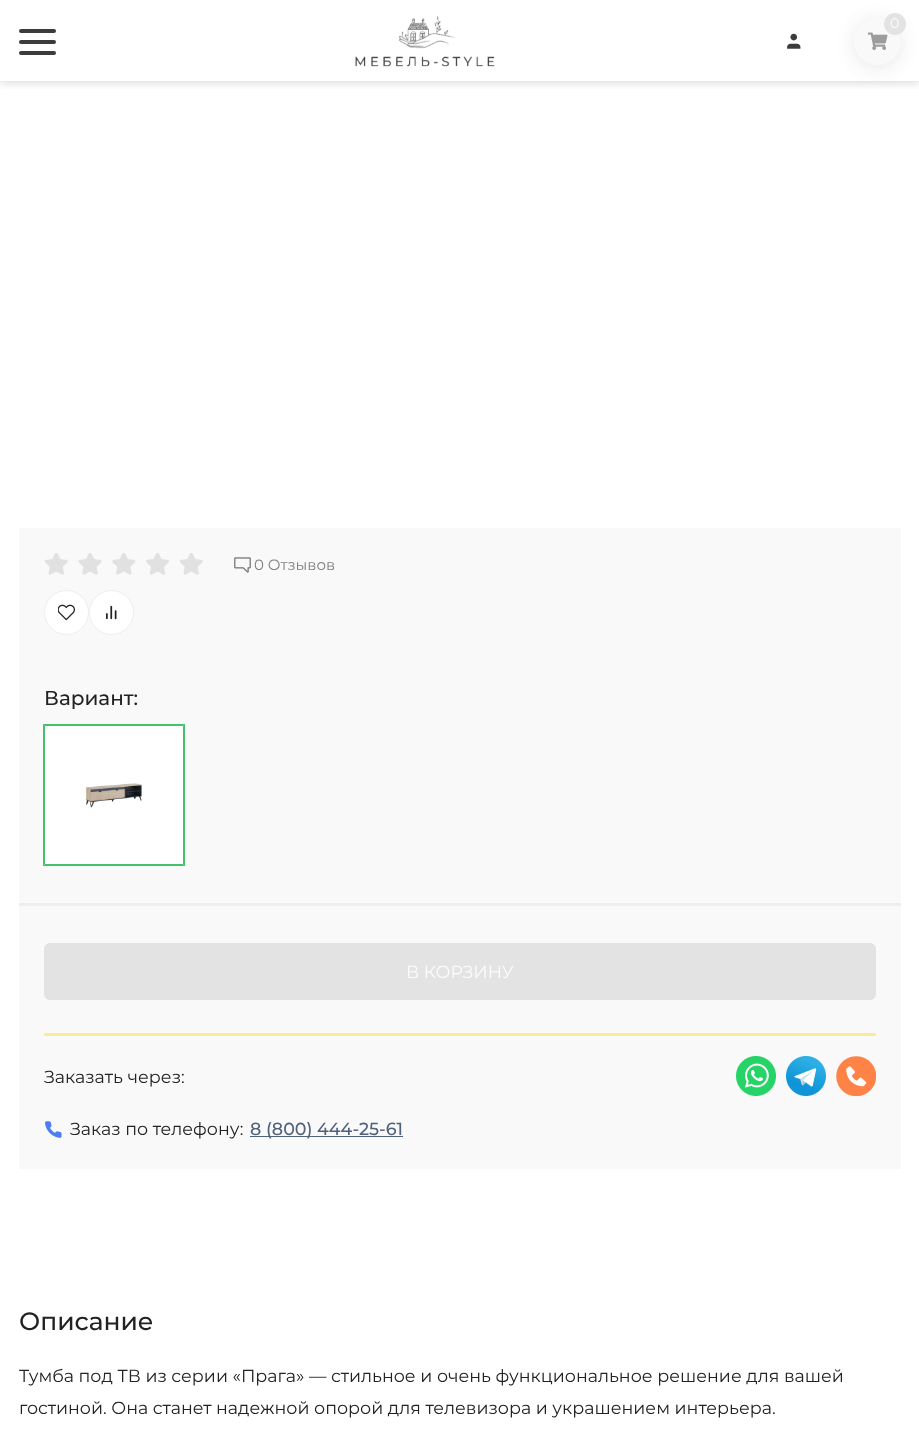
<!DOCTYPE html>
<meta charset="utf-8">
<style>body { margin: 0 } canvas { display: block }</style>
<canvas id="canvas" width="919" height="1436"></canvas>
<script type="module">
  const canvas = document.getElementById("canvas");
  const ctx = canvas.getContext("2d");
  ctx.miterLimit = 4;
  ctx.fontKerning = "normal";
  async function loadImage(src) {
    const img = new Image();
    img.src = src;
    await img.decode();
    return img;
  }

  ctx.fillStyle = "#ffffff";
  ctx.fillRect(0, 0, 919, 1436);
  ctx.save();
  ctx.beginPath();
  ctx.rect(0, 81, 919, 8);
  ctx.clip();
  ctx.fillStyle = "rgba(0, 0, 0, 0.2)";
  ctx.filter = "blur(6px)";
  ctx.beginPath();
  ctx.rect(0, 0, 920, 81);
  ctx.fill();
  ctx.filter = "none";
  ctx.restore();
  ctx.drawImage(await loadImage("img1.png"), 355, 16, 140, 51);
  ctx.fillStyle = "rgba(32, 31, 36, 0.1)";
  ctx.filter = "blur(9.5px)";
  ctx.beginPath();
  ctx.roundRect(854, 20, 47, 48, 23.5);
  ctx.fill();
  ctx.filter = "none";
  ctx.fillStyle = "#f9f9f9";
  ctx.beginPath();
  ctx.arc(877.5, 41.5, 23.5, 0, Math.PI * 2);
  ctx.fill();
  ctx.drawImage(await loadImage("img2.png"), 868, 32, 20, 18);
  ctx.fillStyle = "#e3e3e3";
  ctx.beginPath();
  ctx.arc(895, 24, 11, 0, Math.PI * 2);
  ctx.fill();
  ctx.font = "14px Montserrat";
  ctx.fillStyle = "#fcfcfc";
  ctx.fillText("0", 890, 28);
  ctx.drawImage(await loadImage("img3.png"), 787, 33, 14, 16);
  ctx.fillStyle = "#3c3c3b";
  ctx.beginPath();
  ctx.roundRect(19, 40, 37, 4, 2);
  ctx.fill();
  ctx.beginPath();
  ctx.roundRect(19, 29, 37, 4, 2);
  ctx.fill();
  ctx.beginPath();
  ctx.roundRect(19, 51, 37, 4, 2);
  ctx.fill();
  ctx.fillStyle = "#f9f9f9";
  ctx.fillRect(19, 528, 882, 641);
  ctx.drawImage(await loadImage("img4.png"), 44, 553, 24, 22);
  ctx.drawImage(await loadImage("img5.png"), 78, 553, 24, 22);
  ctx.drawImage(await loadImage("img6.png"), 112, 553, 24, 22);
  ctx.drawImage(await loadImage("img7.png"), 146, 553, 23, 22);
  ctx.drawImage(await loadImage("img4.png"), 179, 553, 24, 22);
  ctx.drawImage(await loadImage("img8.png"), 234, 557, 17, 16);
  ctx.font = "15px Montserrat";
  ctx.fillStyle = "#808080";
  ctx.fillText("0 Отзывов", 254, 570);
  ctx.fillStyle = "#ffffff";
  ctx.beginPath();
  ctx.arc(66.5, 612.5, 22, 0, Math.PI * 2);
  ctx.fill();
  ctx.strokeStyle = "#eeeeee";
  ctx.stroke();
  ctx.drawImage(await loadImage("img9.png"), 58, 604, 17, 17);
  ctx.beginPath();
  ctx.arc(111.5, 612.5, 22, 0, Math.PI * 2);
  ctx.fill();
  ctx.stroke();
  ctx.drawImage(await loadImage("img10.png"), 106, 605, 11, 15);
  ctx.font = "500 20px Montserrat";
  ctx.fillStyle = "#222222";
  ctx.fillText("Вариант:", 44, 705);
  ctx.strokeStyle = "#43c16d";
  ctx.strokeRect(43.5, 724.5, 141, 141);
  ctx.fillStyle = "#ffffff";
  ctx.beginPath();
  ctx.rect(44.5, 725.5, 139, 139);
  ctx.fill();
  ctx.stroke();
  ctx.drawImage(await loadImage("img11.png"), 85, 783, 57, 25);
  ctx.fillStyle = "#eeeeee";
  ctx.fillRect(19, 903, 882, 3);
  ctx.fillStyle = "#e3e3e3";
  ctx.beginPath();
  ctx.roundRect(44, 943, 832, 57, 6);
  ctx.fill();
  ctx.font = "17.5px Montserrat";
  ctx.fillStyle = "#fcfcfc";
  ctx.fillText("В КОРЗИНУ", 406, 978);
  ctx.fillStyle = "#fceb93";
  ctx.beginPath();
  ctx.roundRect(44, 1033, 832, 3, 1.5);
  ctx.fill();
  ctx.fillStyle = "#222222";
  ctx.fillText("Заказать через:", 44, 1083);
  ctx.drawImage(await loadImage("img12.png"), 736, 1056, 40, 40);
  ctx.drawImage(await loadImage("img13.png"), 786, 1056, 40, 40);
  ctx.drawImage(await loadImage("img14.png"), 836, 1056, 40, 40);
  ctx.drawImage(await loadImage("img15.png"), 45, 1121, 17, 17);
  ctx.fillText("Заказ по телефону:", 70, 1135);
  ctx.fillStyle = "#50617b";
  ctx.fillRect(250, 1136, 153, 1);
  ctx.font = "500 17.5px Montserrat";
  ctx.fillText("8 (800) 444-25-61", 250, 1135);
  ctx.font = "500 25px Montserrat";
  ctx.fillStyle = "#222222";
  ctx.fillText("Описание", 19, 1330);
  ctx.font = "17.5px Montserrat";
  ctx.fillText("Тумба под ТВ из серии «Прага» — стильное и очень функциональное решение для вашей", 19, 1382);
  ctx.fillText("гостиной. Она станет надежной опорой для телевизора и украшением интерьера.", 19, 1414);
</script>
